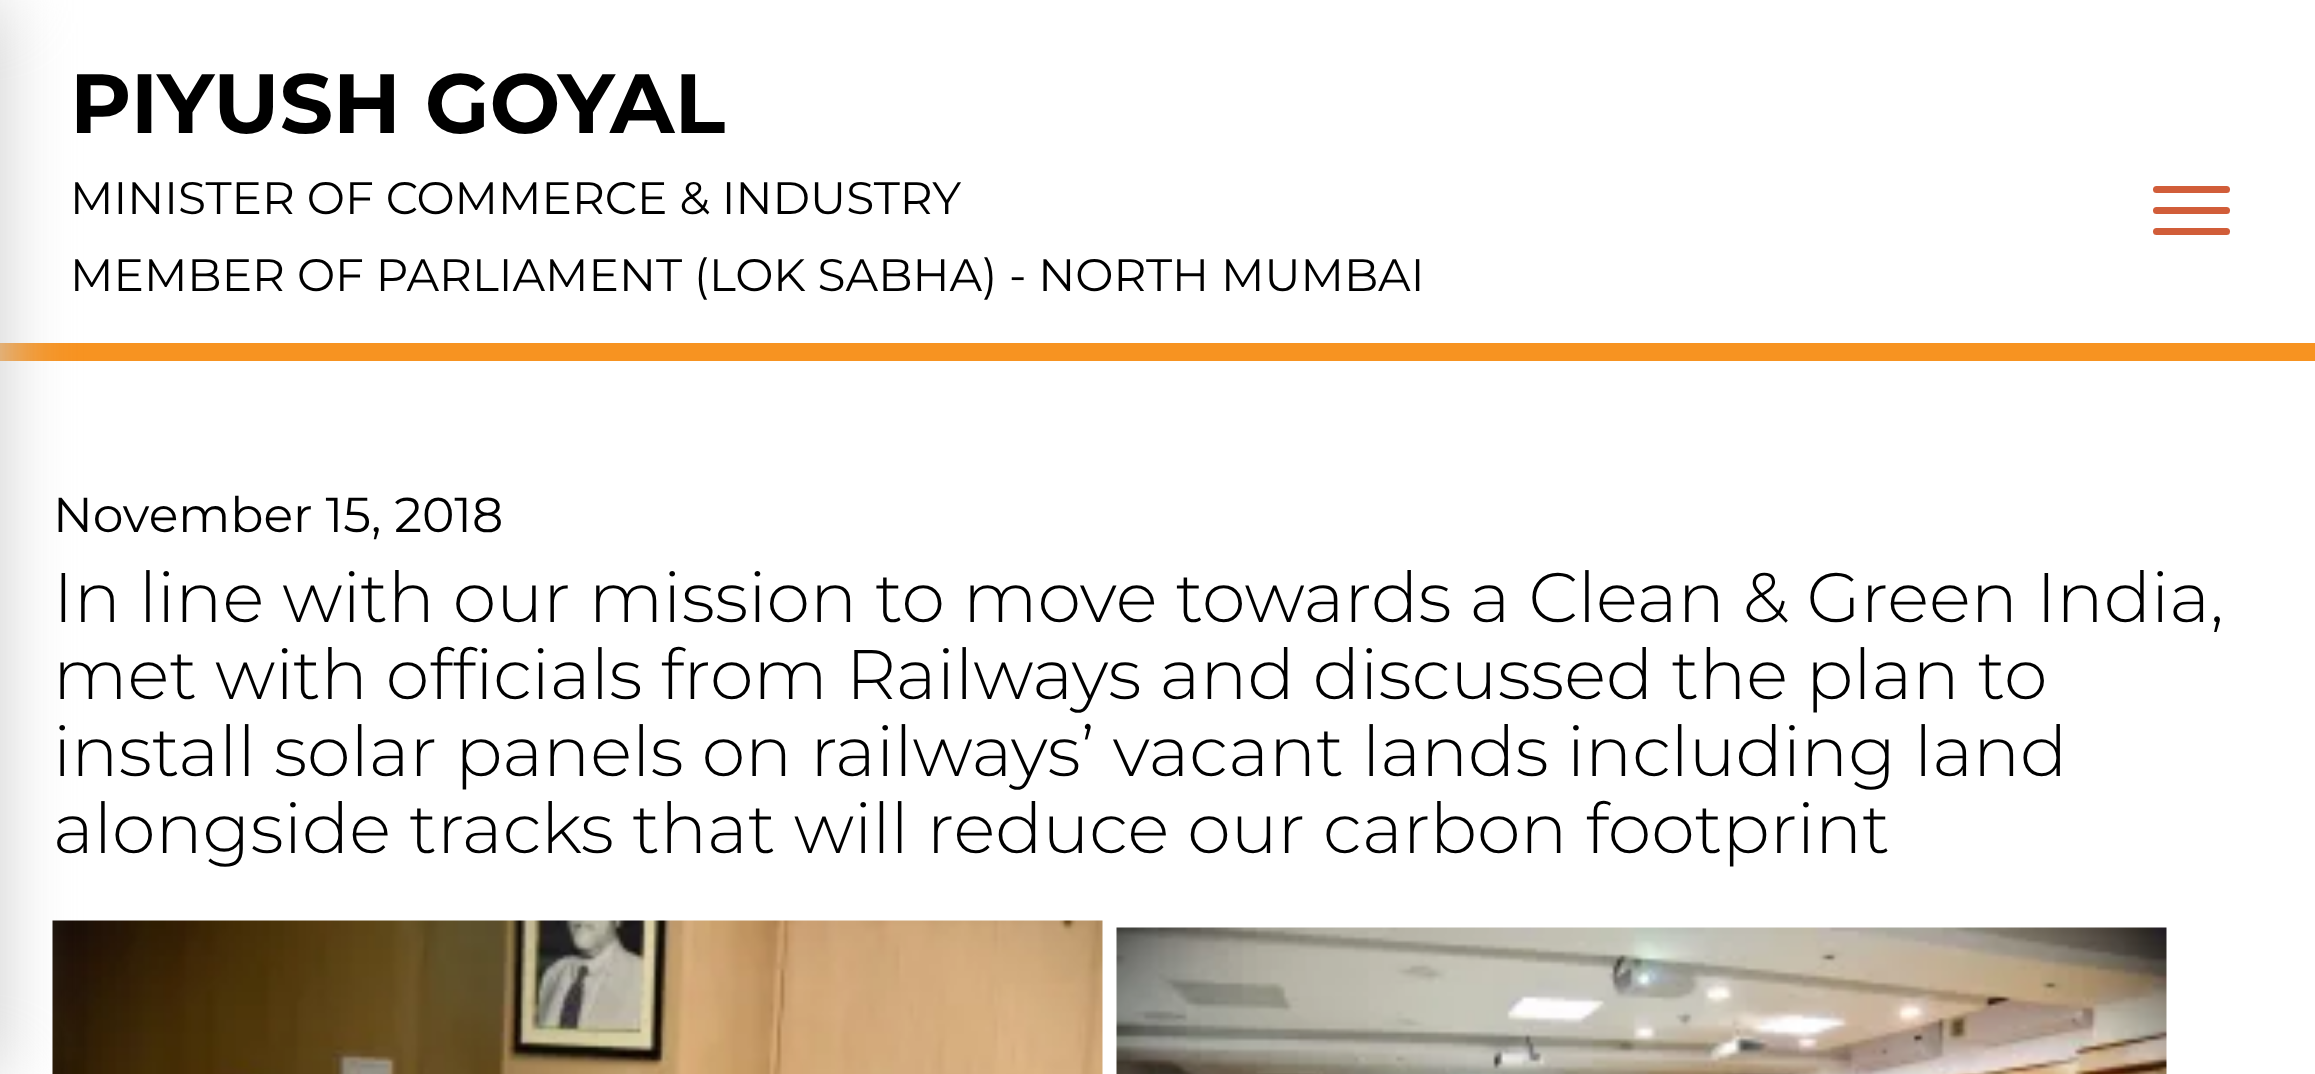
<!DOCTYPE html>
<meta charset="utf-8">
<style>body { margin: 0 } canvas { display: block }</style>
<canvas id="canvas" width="2315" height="1074"></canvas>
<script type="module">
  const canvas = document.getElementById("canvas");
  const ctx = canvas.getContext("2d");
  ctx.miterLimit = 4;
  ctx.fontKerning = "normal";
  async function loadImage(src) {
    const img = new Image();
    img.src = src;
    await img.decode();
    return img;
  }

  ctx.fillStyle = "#ffffff";
  ctx.fillRect(0, 0, 2315, 1074);
  ctx.fillStyle = "#f79321";
  ctx.fillRect(0, 343, 2315, 18);
  ctx.drawImage(await loadImage("img1.png"), 52, 920, 1051, 154);
  ctx.fillStyle = "#cccccc";
  ctx.filter = "blur(35px)";
  ctx.beginPath();
  ctx.rect(-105, 0, 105, 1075);
  ctx.fill();
  ctx.filter = "none";
  ctx.font = "bold 84px Montserrat";
  ctx.fillStyle = "#000000";
  ctx.fillText("PIYUSH GOYAL", 70, 133);
  ctx.font = "45.5px Montserrat";
  ctx.fillText("MINISTER OF COMMERCE & INDUSTRY", 70, 214);
  ctx.fillText("MEMBER OF PARLIAMENT (LOK SABHA) - NORTH MUMBAI", 70, 291);
  ctx.fillStyle = "#d15d39";
  ctx.beginPath();
  ctx.roundRect(2153, 186, 77, 7, 3.5);
  ctx.fill();
  ctx.beginPath();
  ctx.roundRect(2153, 207, 77, 7, 3.5);
  ctx.fill();
  ctx.beginPath();
  ctx.roundRect(2153, 228, 77, 7, 3.5);
  ctx.fill();
  ctx.font = "49px Montserrat";
  ctx.fillStyle = "#000000";
  ctx.fillText("November 15, 2018", 53, 532);
  ctx.font = "300 70px Montserrat";
  ctx.fillText("In line with our mission to move towards a Clean & Green India,", 53, 622);
  ctx.fillText("met with officials from Railways and discussed the plan to", 53, 699);
  ctx.fillText("install solar panels on railways’ vacant lands including land", 53, 776);
  ctx.fillText("alongside tracks that will reduce our carbon footprint", 53, 853);
  ctx.drawImage(await loadImage("img2.png"), 1116, 927, 1051, 147);
</script>
